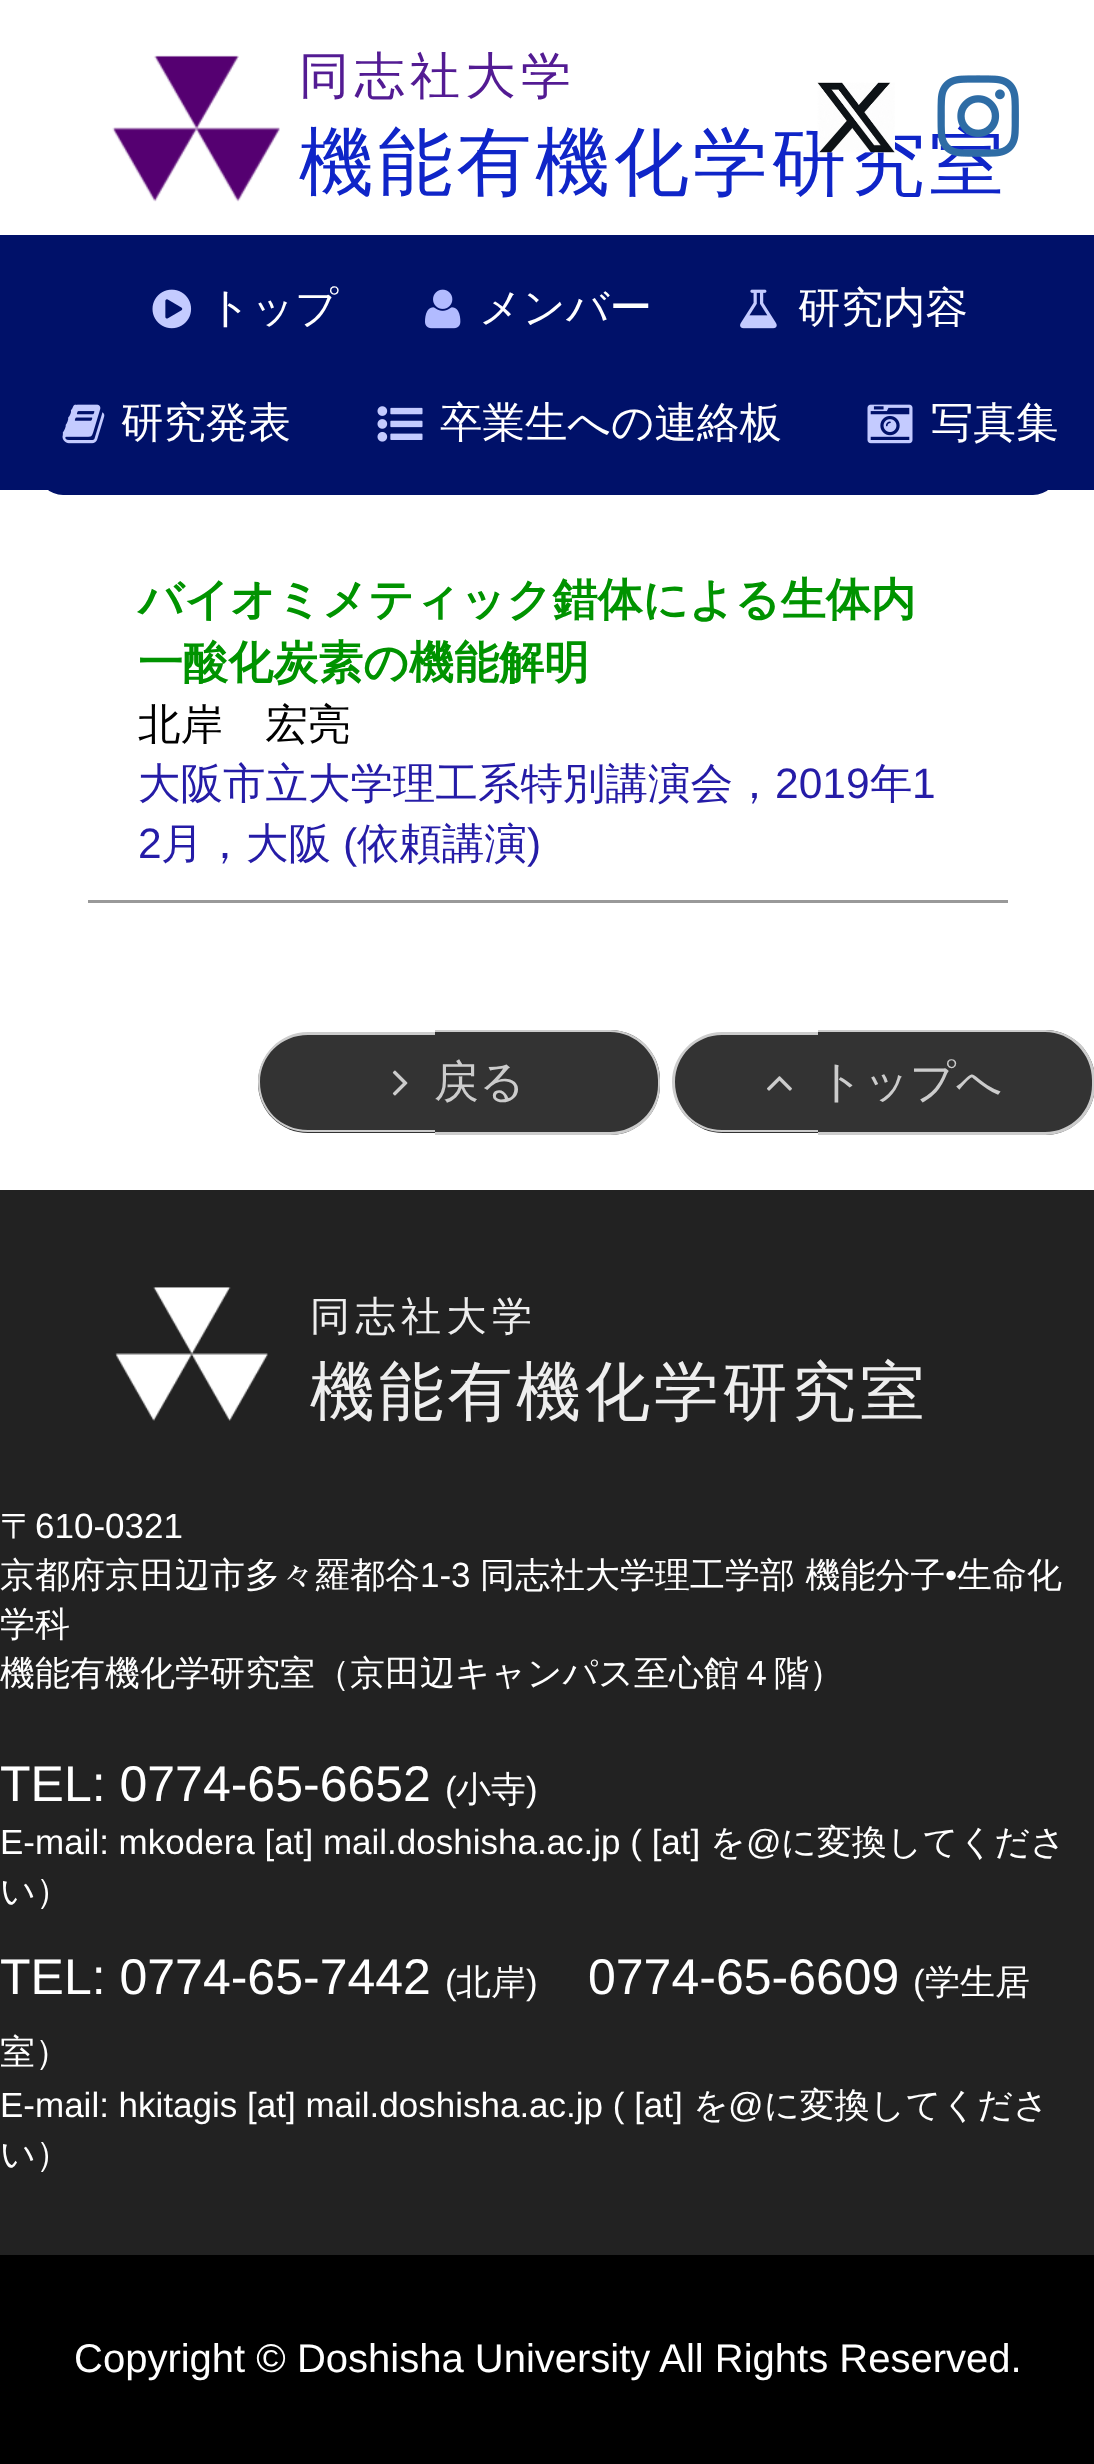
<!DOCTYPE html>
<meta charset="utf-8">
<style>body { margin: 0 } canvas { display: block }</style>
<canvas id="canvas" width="1094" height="2464"></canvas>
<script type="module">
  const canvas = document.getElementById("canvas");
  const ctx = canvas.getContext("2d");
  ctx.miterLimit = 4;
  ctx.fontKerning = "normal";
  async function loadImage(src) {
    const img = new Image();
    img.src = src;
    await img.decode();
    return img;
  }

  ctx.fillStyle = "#ffffff";
  ctx.fillRect(0, 0, 1094, 2464);
  ctx.drawImage(await loadImage("img1.png"), 112, 55, 168, 147);
  ctx.letterSpacing = "5.5px";
  ctx.font = "500 50px WenQuanYi Zen Hei";
  ctx.fillStyle = "#531b93";
  ctx.fillText("同志社大学", 299, 93);
  ctx.letterSpacing = "3.75px";
  ctx.font = "500 75px WenQuanYi Zen Hei";
  ctx.fillStyle = "#0f25c8";
  ctx.fillText("機能有機化学研究室", 299, 188);
  ctx.drawImage(await loadImage("img2.png"), 817, 82, 78, 71);
  ctx.drawImage(await loadImage("img3.png"), 937, 75, 82, 82);
  ctx.fillStyle = "#001169";
  ctx.beginPath();
  ctx.roundRect(38, 268, 1020, 227, 25);
  ctx.fill();
  ctx.fillRect(0, 235, 1094, 255);
  ctx.drawImage(await loadImage("img4.png"), 152, 289, 40, 40);
  ctx.letterSpacing = "0px";
  ctx.font = "500 42.5px WenQuanYi Zen Hei";
  ctx.fillStyle = "#ffffff";
  ctx.fillText("トップ", 208, 322);
  ctx.drawImage(await loadImage("img5.png"), 425, 289, 36, 40);
  ctx.fillText("メンバー", 479, 322);
  ctx.drawImage(await loadImage("img6.png"), 740, 289, 37, 40);
  ctx.fillText("研究内容", 798, 322);
  ctx.drawImage(await loadImage("img7.png"), 62, 404, 43, 40);
  ctx.fillText("研究発表", 121, 437);
  ctx.drawImage(await loadImage("img8.png"), 377, 406, 46, 36);
  ctx.fillText("卒業生への連絡板", 440, 437);
  ctx.drawImage(await loadImage("img9.png"), 867, 404, 46, 40);
  ctx.fillText("写真集", 931, 437);
  ctx.fillStyle = "#999999";
  ctx.fillRect(88, 900, 920, 3);
  ctx.font = "bold 45px WenQuanYi Zen Hei";
  ctx.fillStyle = "#009300";
  ctx.fillText("バイオミメティック錯体による生体内", 138, 615);
  ctx.fillText("一酸化炭素の機能解明", 138, 678);
  ctx.font = "500 42.5px WenQuanYi Zen Hei";
  ctx.fillStyle = "#000000";
  ctx.fillText("北岸　宏亮", 138, 739);
  ctx.fillStyle = "#251ca7";
  ctx.fillText("大阪市立大学理工系特別講演会，", 138, 798);
  ctx.font = "42.5px Liberation Sans";
  ctx.fillText("2019", 775, 798);
  ctx.font = "500 42.5px WenQuanYi Zen Hei";
  ctx.fillText("年", 870, 798);
  ctx.font = "42.5px Liberation Sans";
  ctx.fillText("1", 912, 798);
  ctx.fillText("2", 138, 858);
  ctx.font = "500 42.5px WenQuanYi Zen Hei";
  ctx.fillText("月，大阪", 161, 858);
  ctx.font = "42.5px Liberation Sans";
  ctx.fillText("(", 343, 858);
  ctx.font = "500 42.5px WenQuanYi Zen Hei";
  ctx.fillText("依頼講演", 357, 858);
  ctx.font = "42.5px Liberation Sans";
  ctx.fillText(")", 527, 858);
  ctx.fillStyle = "#333333";
  ctx.beginPath();
  ctx.roundRect(258, 1033, 177, 100, [50, 0, 0, 50]);
  ctx.fill();
  ctx.fillStyle = "#cccccc";
  ctx.beginPath();
  ctx.moveTo(308, 1032);
  ctx.lineTo(435, 1032);
  ctx.lineTo(435, 1132);
  ctx.lineTo(308, 1132);
  ctx.bezierCurveTo(280, 1132, 258, 1110, 258, 1082);
  ctx.bezierCurveTo(258, 1055, 280, 1032, 308, 1032);
  ctx.closePath();
  ctx.moveTo(308, 1035);
  ctx.lineTo(435, 1035);
  ctx.lineTo(435, 1130);
  ctx.lineTo(308, 1130);
  ctx.bezierCurveTo(281, 1130, 260, 1109, 260, 1082);
  ctx.bezierCurveTo(260, 1056, 281, 1035, 308, 1035);
  ctx.closePath();
  ctx.fill("evenodd");
  ctx.drawImage(await loadImage("img10.png"), 392, 1070, 16, 26);
  ctx.fillStyle = "#333333";
  ctx.beginPath();
  ctx.roundRect(435, 1030, 225, 105, [0, 50, 50, 0]);
  ctx.fill();
  ctx.fillStyle = "#cccccc";
  ctx.beginPath();
  ctx.moveTo(435, 1030);
  ctx.lineTo(610, 1030);
  ctx.bezierCurveTo(638, 1030, 660, 1052, 660, 1080);
  ctx.lineTo(660, 1085);
  ctx.bezierCurveTo(660, 1113, 638, 1135, 610, 1135);
  ctx.lineTo(435, 1135);
  ctx.closePath();
  ctx.moveTo(435, 1032);
  ctx.lineTo(610, 1032);
  ctx.bezierCurveTo(636, 1032, 658, 1054, 658, 1080);
  ctx.lineTo(658, 1085);
  ctx.bezierCurveTo(658, 1111, 636, 1132, 610, 1132);
  ctx.lineTo(435, 1132);
  ctx.closePath();
  ctx.fill("evenodd");
  ctx.font = "500 45px WenQuanYi Zen Hei";
  ctx.fillText("戻る", 434, 1097);
  ctx.fillStyle = "#333333";
  ctx.beginPath();
  ctx.roundRect(673, 1033, 145, 100, [50, 0, 0, 50]);
  ctx.fill();
  ctx.fillStyle = "#cccccc";
  ctx.beginPath();
  ctx.moveTo(722, 1032);
  ctx.lineTo(818, 1032);
  ctx.lineTo(818, 1132);
  ctx.lineTo(722, 1132);
  ctx.bezierCurveTo(695, 1132, 672, 1110, 672, 1082);
  ctx.bezierCurveTo(672, 1055, 695, 1032, 722, 1032);
  ctx.closePath();
  ctx.moveTo(722, 1035);
  ctx.lineTo(818, 1035);
  ctx.lineTo(818, 1130);
  ctx.lineTo(722, 1130);
  ctx.bezierCurveTo(696, 1130, 675, 1109, 675, 1082);
  ctx.bezierCurveTo(675, 1056, 696, 1035, 722, 1035);
  ctx.closePath();
  ctx.fill("evenodd");
  ctx.drawImage(await loadImage("img11.png"), 767, 1076, 25, 15);
  ctx.fillStyle = "#333333";
  ctx.beginPath();
  ctx.moveTo(818, 1030);
  ctx.lineTo(1045, 1030);
  ctx.bezierCurveTo(1072.5, 1030, 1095, 1052.5, 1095, 1080);
  ctx.lineTo(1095, 1085);
  ctx.bezierCurveTo(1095, 1112.5, 1072.5, 1135, 1045, 1135);
  ctx.lineTo(818, 1135);
  ctx.closePath();
  ctx.fill();
  ctx.fillStyle = "#cccccc";
  ctx.beginPath();
  ctx.moveTo(818, 1030);
  ctx.lineTo(1045, 1030);
  ctx.bezierCurveTo(1073, 1030, 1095, 1052, 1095, 1080);
  ctx.lineTo(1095, 1085);
  ctx.bezierCurveTo(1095, 1113, 1073, 1135, 1045, 1135);
  ctx.lineTo(818, 1135);
  ctx.closePath();
  ctx.moveTo(818, 1032);
  ctx.lineTo(1045, 1032);
  ctx.bezierCurveTo(1071, 1032, 1092, 1054, 1092, 1080);
  ctx.lineTo(1092, 1085);
  ctx.bezierCurveTo(1092, 1111, 1071, 1132, 1045, 1132);
  ctx.lineTo(818, 1132);
  ctx.closePath();
  ctx.fill("evenodd");
  ctx.fillText("トップへ", 818, 1097);
  ctx.fillStyle = "#222222";
  ctx.fillRect(0, 1190, 1094, 1065);
  ctx.drawImage(await loadImage("img12.png"), 115, 1287, 153, 134);
  ctx.letterSpacing = "5.5px";
  ctx.font = "500 40px WenQuanYi Zen Hei";
  ctx.fillStyle = "#eeeeee";
  ctx.fillText("同志社大学", 310, 1330);
  ctx.letterSpacing = "3.75px";
  ctx.font = "500 65px WenQuanYi Zen Hei";
  ctx.fillText("機能有機化学研究室", 310, 1414);
  ctx.letterSpacing = "0px";
  ctx.font = "500 35px WenQuanYi Zen Hei";
  ctx.fillStyle = "#ffffff";
  ctx.fillText("〒", 0, 1538);
  ctx.font = "35px Liberation Sans";
  ctx.fillText("610-0321", 35, 1538);
  ctx.font = "500 35px WenQuanYi Zen Hei";
  ctx.fillText("京都府京田辺市多々羅都谷", 0, 1587);
  ctx.font = "35px Liberation Sans";
  ctx.fillText("1-3", 420, 1587);
  ctx.font = "500 35px WenQuanYi Zen Hei";
  ctx.fillText("同志社大学理工学部 機能分子", 480, 1587);
  ctx.font = "35px Liberation Sans";
  ctx.fillText("•", 945, 1587);
  ctx.font = "500 35px WenQuanYi Zen Hei";
  ctx.fillText("生命化", 957, 1587);
  ctx.fillText("学科", 0, 1636);
  ctx.fillText("機能有機化学研究室（京田辺キャンパス至心館４階）", 0, 1685);
  ctx.font = "50px Liberation Sans";
  ctx.fillText("TEL: 0774-65-6652", 0, 1801);
  ctx.font = "35px Liberation Sans";
  ctx.fillText("(", 445, 1801);
  ctx.font = "500 35px WenQuanYi Zen Hei";
  ctx.fillText("小寺", 456, 1801);
  ctx.font = "35px Liberation Sans";
  ctx.fillText(")", 526, 1801);
  ctx.fillText("E-mail: mkodera [at] mail.doshisha.ac.jp ( [at]", 0, 1854);
  ctx.font = "500 35px WenQuanYi Zen Hei";
  ctx.fillText("を", 710, 1854);
  ctx.font = "35px Liberation Sans";
  ctx.fillText("@", 746, 1854);
  ctx.font = "500 35px WenQuanYi Zen Hei";
  ctx.fillText("に変換してくださ", 781, 1854);
  ctx.fillText("い）", 0, 1903);
  ctx.font = "50px Liberation Sans";
  ctx.fillText("TEL: 0774-65-7442", 0, 1994);
  ctx.font = "35px Liberation Sans";
  ctx.fillText("(", 445, 1994);
  ctx.font = "500 35px WenQuanYi Zen Hei";
  ctx.fillText("北岸", 456, 1994);
  ctx.font = "35px Liberation Sans";
  ctx.fillText(")", 526, 1994);
  ctx.font = "50px Liberation Sans";
  ctx.fillText("0774-65-6609", 588, 1994);
  ctx.font = "35px Liberation Sans";
  ctx.fillText("(", 913, 1994);
  ctx.font = "500 35px WenQuanYi Zen Hei";
  ctx.fillText("学生居", 925, 1994);
  ctx.fillText("室）", 0, 2064);
  ctx.font = "35px Liberation Sans";
  ctx.fillText("E-mail: hkitagis [at] mail.doshisha.ac.jp ( [at]", 0, 2117);
  ctx.font = "500 35px WenQuanYi Zen Hei";
  ctx.fillText("を", 693, 2117);
  ctx.font = "35px Liberation Sans";
  ctx.fillText("@", 728, 2117);
  ctx.font = "500 35px WenQuanYi Zen Hei";
  ctx.fillText("に変換してくださ", 764, 2117);
  ctx.fillText("い）", 0, 2166);
  ctx.fillStyle = "#000000";
  ctx.fillRect(0, 2255, 1094, 209);
  ctx.font = "40px Liberation Sans";
  ctx.fillStyle = "#ffffff";
  ctx.fillText("Copyright © Doshisha University All Rights Reserved.", 74, 2372);
</script>
